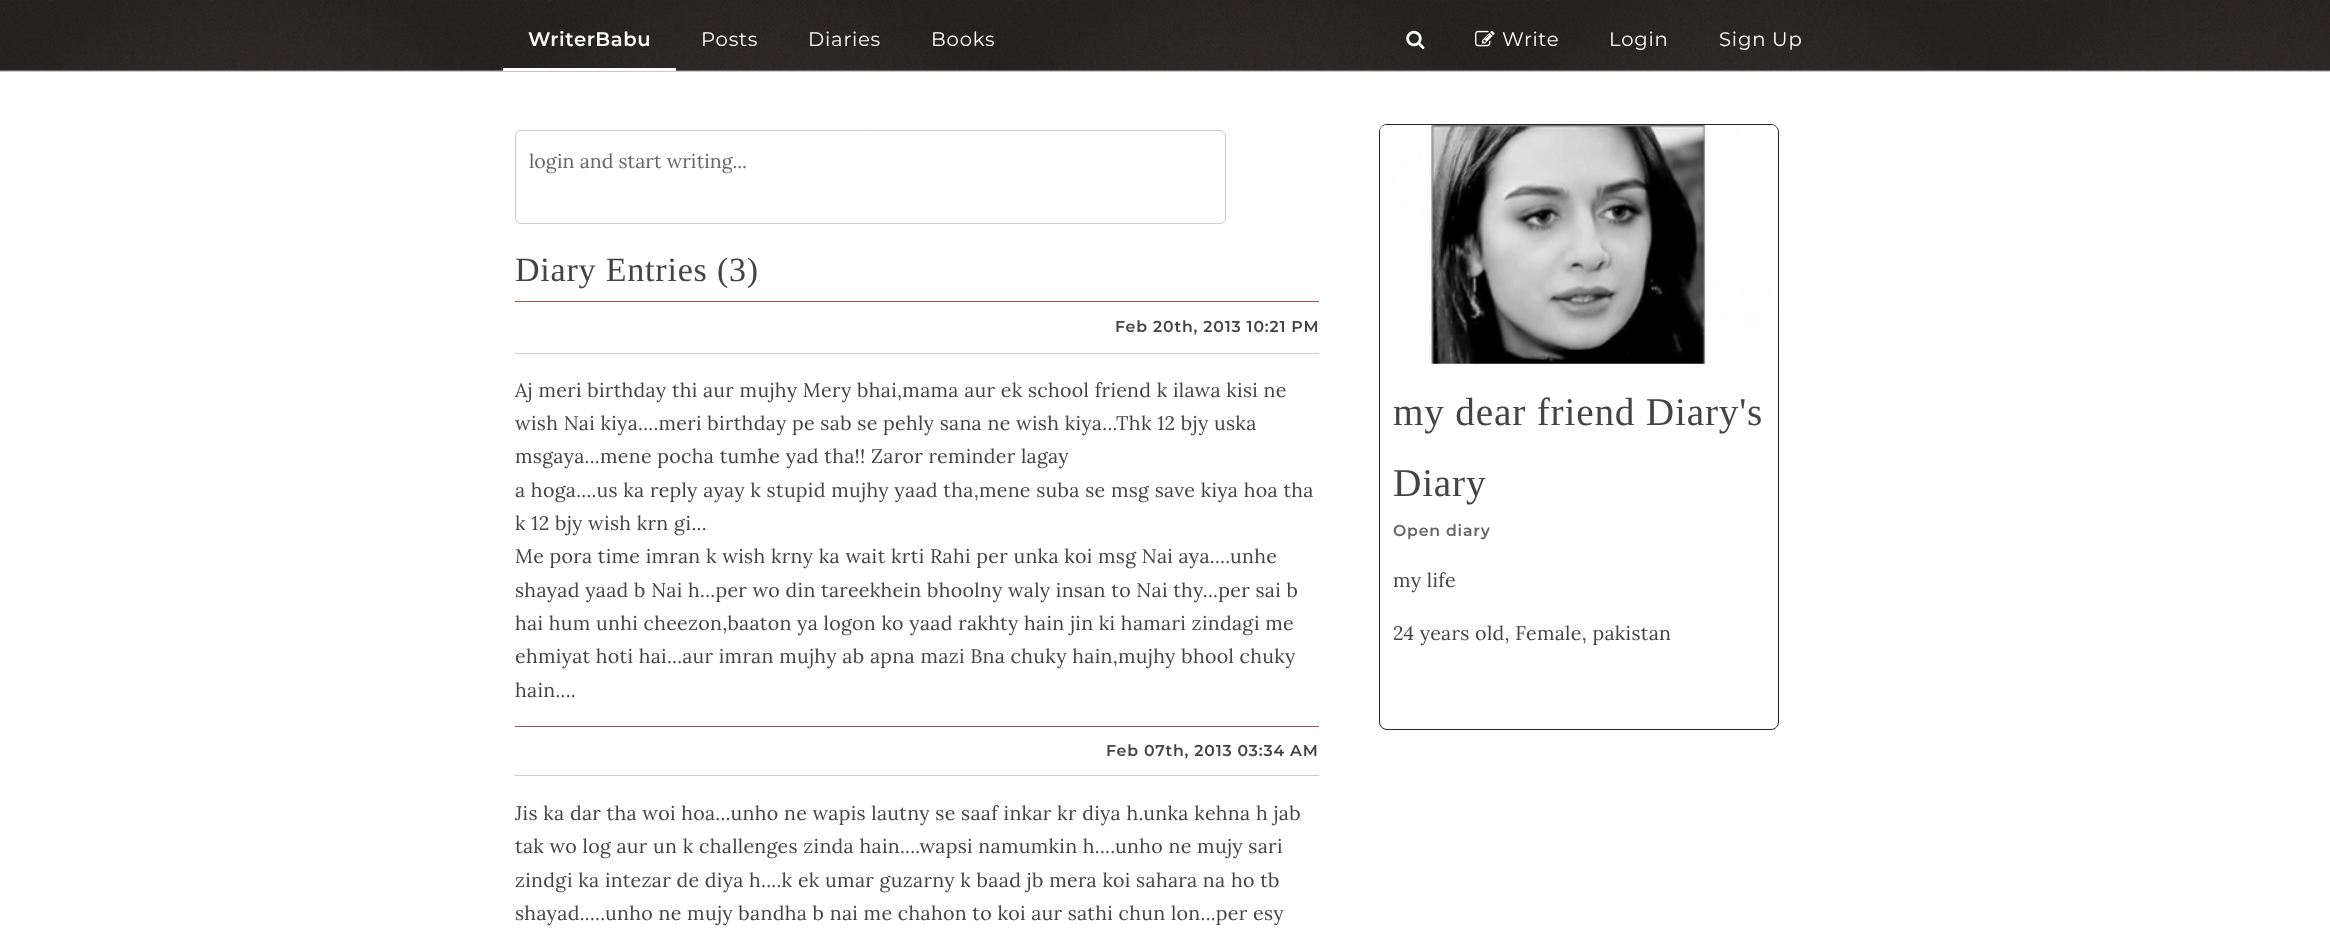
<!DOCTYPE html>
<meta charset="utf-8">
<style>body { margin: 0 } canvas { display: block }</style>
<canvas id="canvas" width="2330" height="929"></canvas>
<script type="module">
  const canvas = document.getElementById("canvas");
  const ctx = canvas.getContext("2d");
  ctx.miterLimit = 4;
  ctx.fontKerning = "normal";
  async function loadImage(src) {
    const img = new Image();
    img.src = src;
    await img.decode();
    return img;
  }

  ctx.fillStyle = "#ffffff";
  ctx.fillRect(0, 0, 2330, 929);
  ctx.drawImage(await loadImage("img1.png"), 0, 0, 2330, 72);
  ctx.fillStyle = "#666666";
  ctx.fillRect(0, 70, 2330, 1);
  ctx.fillStyle = "#ffffff";
  ctx.fillRect(503, 68, 173, 3);
  ctx.letterSpacing = "0.6px";
  ctx.font = "600 19.6px Montserrat";
  ctx.fillText("WriterBabu", 528, 46);
  ctx.letterSpacing = "0.8px";
  ctx.font = "19.6px Montserrat";
  ctx.fillText("Posts", 701, 46);
  ctx.fillText("Diaries", 808, 46);
  ctx.fillText("Books", 931, 46);
  ctx.drawImage(await loadImage("img2.png"), 1406, 30, 19, 19);
  ctx.drawImage(await loadImage("img3.png"), 1475, 30, 20, 17);
  ctx.fillText("Write", 1502, 46);
  ctx.fillText("Login", 1609, 46);
  ctx.fillText("Sign Up", 1719, 46);
  ctx.beginPath();
  ctx.roundRect(515.5, 130.5, 710, 93, 5.5);
  ctx.strokeStyle = "#cccccc";
  ctx.stroke();
  ctx.letterSpacing = "0px";
  ctx.font = "19.6px Lora";
  ctx.fillStyle = "#666666";
  ctx.fillText("login and start writing...", 529, 168);
  ctx.fillStyle = "#985858";
  ctx.fillRect(515, 301, 804, 1);
  ctx.letterSpacing = "0.8px";
  ctx.font = "34px Liberation Serif";
  ctx.fillStyle = "#444444";
  ctx.fillText("Diary Entries (3)", 515, 281);
  ctx.fillStyle = "#985858";
  ctx.fillRect(515, 726, 804, 1);
  ctx.fillStyle = "#cccccc";
  ctx.fillRect(515, 353, 804, 1);
  ctx.font = "600 15.75px Montserrat";
  ctx.fillStyle = "#444444";
  ctx.fillText("Feb 20th, 2013 10:21 PM", 1115, 332);
  ctx.letterSpacing = "0.3px";
  ctx.font = "19.6px Lora";
  ctx.fillText("Aj meri birthday thi aur mujhy Mery bhai,mama aur ek school friend k ilawa kisi ne", 515, 397);
  ctx.fillText("wish Nai kiya....meri birthday pe sab se pehly sana ne wish kiya...Thk 12 bjy uska", 515, 430);
  ctx.fillText("msgaya...mene pocha tumhe yad tha!! Zaror reminder lagay", 515, 463);
  ctx.fillText("a hoga....us ka reply ayay k stupid mujhy yaad tha,mene suba se msg save kiya hoa tha", 515, 497);
  ctx.fillText("k 12 bjy wish krn gi...", 515, 530);
  ctx.fillText("Me pora time imran k wish krny ka wait krti Rahi per unka koi msg Nai aya....unhe", 515, 563);
  ctx.fillText("shayad yaad b Nai h...per wo din tareekhein bhoolny waly insan to Nai thy...per sai b", 515, 597);
  ctx.fillText("hai hum unhi cheezon,baaton ya logon ko yaad rakhty hain jin ki hamari zindagi me", 515, 630);
  ctx.fillText("ehmiyat hoti hai...aur imran mujhy ab apna mazi Bna chuky hain,mujhy bhool chuky", 515, 663);
  ctx.fillText("hain....", 515, 697);
  ctx.fillStyle = "#cccccc";
  ctx.fillRect(515, 775, 804, 1);
  ctx.letterSpacing = "0.8px";
  ctx.font = "600 15.75px Montserrat";
  ctx.fillStyle = "#444444";
  ctx.fillText("Feb 07th, 2013 03:34 AM", 1106, 756);
  ctx.letterSpacing = "0.3px";
  ctx.font = "19.6px Lora";
  ctx.fillText("Jis ka dar tha woi hoa...unho ne wapis lautny se saaf inkar kr diya h.unka kehna h jab", 515, 820);
  ctx.fillText("tak wo log aur un k challenges zinda hain....wapsi namumkin h....unho ne mujy sari", 515, 853);
  ctx.fillText("zindgi ka intezar de diya h....k ek umar guzarny k baad jb mera koi sahara na ho tb", 515, 887);
  ctx.fillText("shayad.....unho ne mujy bandha b nai me chahon to koi aur sathi chun lon...per esy", 515, 920);
  ctx.beginPath();
  ctx.roundRect(1379.5, 124.5, 399, 605, 7.5);
  ctx.strokeStyle = "#242424";
  ctx.stroke();
  ctx.drawImage(await loadImage("img4.png"), 1380, 125, 398, 239);
  ctx.letterSpacing = "0.8px";
  ctx.font = "39.25px Liberation Serif";
  ctx.fillText("my dear friend Diary's", 1393, 425);
  ctx.fillText("Diary", 1393, 496);
  ctx.font = "600 15.75px Montserrat";
  ctx.fillStyle = "#666666";
  ctx.fillText("Open diary", 1393, 536);
  ctx.letterSpacing = "0.3px";
  ctx.font = "19.6px Lora";
  ctx.fillStyle = "#444444";
  ctx.fillText("my life", 1393, 587);
  ctx.fillText("24 years old, Female, pakistan", 1393, 640);
</script>
